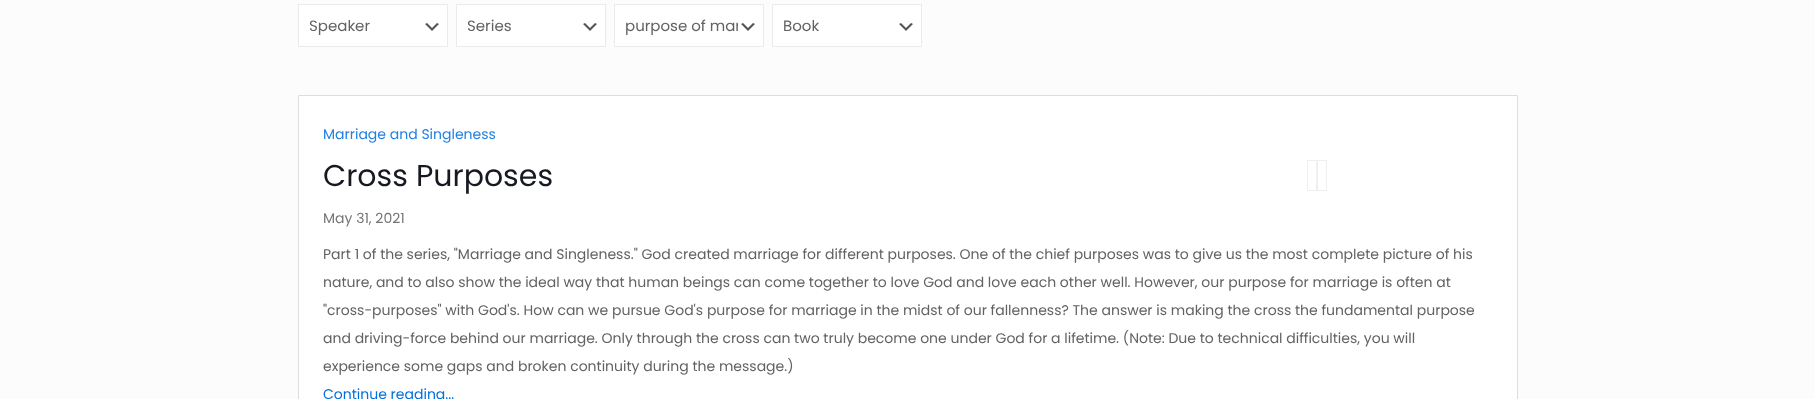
<!DOCTYPE html>
<meta charset="utf-8">
<style>body { margin: 0 } canvas { display: block }</style>
<canvas id="canvas" width="1815" height="399"></canvas>
<script type="module">
  const canvas = document.getElementById("canvas");
  const ctx = canvas.getContext("2d");
  ctx.miterLimit = 4;
  ctx.fontKerning = "normal";
  async function loadImage(src) {
    const img = new Image();
    img.src = src;
    await img.decode();
    return img;
  }

  ctx.fillStyle = "#fcfcfc";
  ctx.fillRect(0, 0, 1815, 399);
  ctx.fillStyle = "#ffffff";
  ctx.fillRect(299, 5, 148, 41);
  ctx.drawImage(await loadImage("img1.png"), 425, 23, 14, 8);
  ctx.strokeStyle = "#ebebeb";
  ctx.strokeRect(298.5, 4.5, 149, 42);
  ctx.font = "15px Poppins";
  ctx.fillStyle = "#626262";
  ctx.fillText("Speaker", 309, 31);
  ctx.fillStyle = "#ffffff";
  ctx.fillRect(457, 5, 148, 41);
  ctx.drawImage(await loadImage("img1.png"), 583, 23, 14, 8);
  ctx.strokeRect(456.5, 4.5, 149, 42);
  ctx.fillStyle = "#626262";
  ctx.fillText("Series", 467, 31);
  ctx.fillStyle = "#ffffff";
  ctx.fillRect(615, 5, 148, 41);
  ctx.drawImage(await loadImage("img1.png"), 741, 23, 14, 8);
  ctx.strokeRect(614.5, 4.5, 149, 42);
  ctx.save();
  ctx.beginPath();
  ctx.rect(625, 15, 113, 21);
  ctx.clip();
  ctx.fillStyle = "#626262";
  ctx.fillText("purpose of mar", 625, 31);
  ctx.restore();
  ctx.fillRect(773, 5, 148, 41);
  ctx.drawImage(await loadImage("img1.png"), 899, 23, 14, 8);
  ctx.strokeRect(772.5, 4.5, 149, 42);
  ctx.fillStyle = "#626262";
  ctx.fillText("Book", 783, 31);
  ctx.fillStyle = "#ffffff";
  ctx.beginPath();
  ctx.rect(298.5, 95.5, 1219, 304);
  ctx.fill();
  ctx.strokeStyle = "#dddddd";
  ctx.stroke();
  ctx.font = "14px Poppins";
  ctx.fillStyle = "#2181e3";
  ctx.fillText("Marriage and Singleness", 323, 139);
  ctx.font = "30px Poppins";
  ctx.fillStyle = "#161922";
  ctx.fillText("Cross Purposes", 323, 186);
  ctx.font = "14px Poppins";
  ctx.fillStyle = "#767676";
  ctx.fillText("May 31, 2021", 323, 223);
  ctx.strokeStyle = "#efefef";
  ctx.strokeRect(1307.5, 160.5, 9, 30);
  ctx.strokeRect(1317.5, 160.5, 9, 30);
  ctx.fillStyle = "#626262";
  ctx.fillText("Part 1 of the series, \"Marriage and Singleness.\" God created marriage for different purposes. One of the chief purposes was to give us the most complete picture of his", 323, 259);
  ctx.fillText("nature, and to also show the ideal way that human beings can come together to love God and love each other well. However, our purpose for marriage is often at", 323, 287);
  ctx.fillText("\"cross-purposes\" with God's. How can we pursue God's purpose for marriage in the midst of our fallenness? The answer is making the cross the fundamental purpose", 323, 315);
  ctx.fillText("and driving-force behind our marriage. Only through the cross can two truly become one under God for a lifetime. (Note: Due to technical difficulties, you will", 323, 343);
  ctx.fillText("experience some gaps and broken continuity during the message.)", 323, 371);
  ctx.fillStyle = "#006edf";
  ctx.fillText("Continue reading...", 323, 399);
</script>
